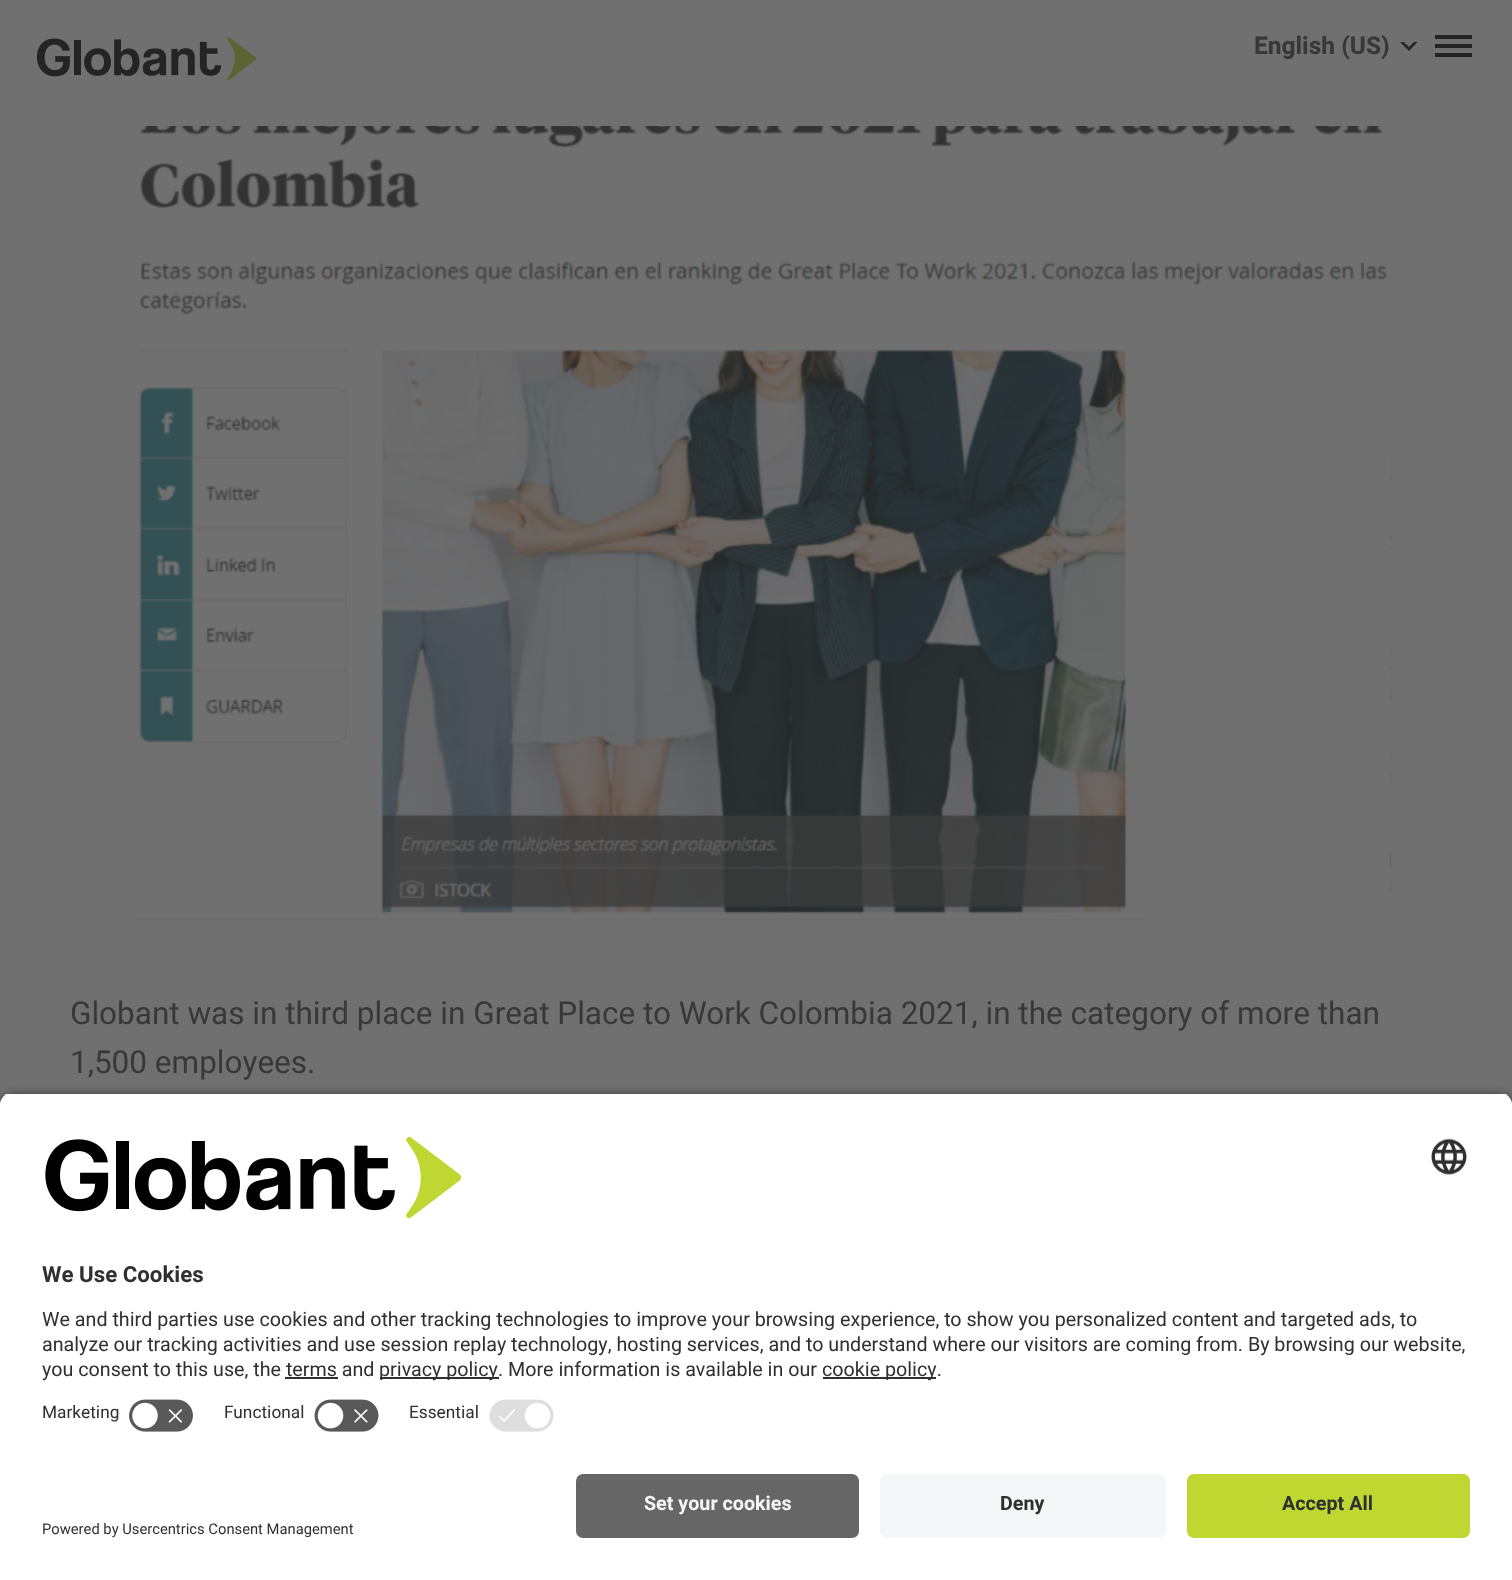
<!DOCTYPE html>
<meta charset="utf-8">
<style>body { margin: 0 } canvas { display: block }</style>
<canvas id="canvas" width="1512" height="1580"></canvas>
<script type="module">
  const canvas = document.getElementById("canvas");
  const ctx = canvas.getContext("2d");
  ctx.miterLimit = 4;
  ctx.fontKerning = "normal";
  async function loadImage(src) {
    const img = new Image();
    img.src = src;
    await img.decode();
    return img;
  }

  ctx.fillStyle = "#707070";
  ctx.fillRect(0, 0, 1512, 1580);
  ctx.drawImage(await loadImage("img1.png"), 36, 37, 221, 44);
  ctx.font = "bold 24.5px Heebo";
  ctx.fillStyle = "#383838";
  ctx.fillText("English (US)", 1254, 54);
  ctx.fillStyle = "#242424";
  ctx.beginPath();
  ctx.moveTo(1400, 42);
  ctx.lineTo(1417.5, 42);
  ctx.lineTo(1409, 51);
  ctx.closePath();
  ctx.fill();
  ctx.fillStyle = "#707070";
  ctx.beginPath();
  ctx.moveTo(1403.5, 42);
  ctx.lineTo(1414, 42);
  ctx.lineTo(1409, 47);
  ctx.closePath();
  ctx.fill();
  ctx.drawImage(await loadImage("img2.png"), 108, 126, 1284, 794);
  ctx.font = "31.5px Heebo";
  ctx.fillStyle = "#383838";
  ctx.fillText("Globant was in third place in Great Place to Work Colombia 2021, in the category of more than", 70, 1024);
  ctx.fillText("1,500 employees.", 70, 1073);
  ctx.fillStyle = "#242424";
  ctx.fillRect(1435, 44, 37, 4);
  ctx.fillRect(1435, 35, 37, 4);
  ctx.fillRect(1435, 53, 37, 4);
  ctx.fillStyle = "rgba(0, 0, 0, 0.8)";
  ctx.filter = "blur(6px)";
  ctx.beginPath();
  ctx.roundRect(0, 1097, 1512, 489, 14);
  ctx.fill();
  ctx.filter = "none";
  ctx.save();
  ctx.beginPath();
  ctx.roundRect(0, 1092, 1512, 368, [14, 14, 0, 0]);
  ctx.clip();
  ctx.fillStyle = "#ffffff";
  ctx.fillRect(0, 1094, 1512, 366);
  ctx.fillRect(0, 1094, 1512, 296);
  ctx.restore();
  ctx.drawImage(await loadImage("img3.png"), 45, 1136, 417, 83);
  ctx.drawImage(await loadImage("img4.png"), 1431, 1138, 36, 37);
  ctx.font = "bold 22.25px 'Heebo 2'";
  ctx.fillStyle = "#303030";
  ctx.fillText("We Use Cookies", 42, 1282);
  ctx.font = "19.7px 'Heebo 2'";
  ctx.fillText("We and third parties use cookies and other tracking technologies to improve your browsing experience, to show you personalized content and targeted ads, to", 42, 1326);
  ctx.fillText("analyze our tracking activities and use session replay technology, hosting services, and to understand where our visitors are coming from. By browsing our website,", 42, 1351);
  ctx.fillText("you consent to this use, the terms and", 42, 1376);
  ctx.fillRect(285, 1377, 53, 2);
  ctx.fillRect(380, 1377, 119, 2);
  ctx.fillText("privacy policy. More information is available in our", 379, 1376);
  ctx.fillRect(823, 1377, 113, 2);
  ctx.fillText("cookie policy.", 822, 1376);
  ctx.font = "17.25px 'Heebo 2'";
  ctx.fillText("Marketing", 42, 1418);
  ctx.drawImage(await loadImage("img5.png"), 129, 1399, 64, 33);
  ctx.fillText("Functional", 224, 1418);
  ctx.drawImage(await loadImage("img6.png"), 314, 1399, 65, 33);
  ctx.fillText("Essential", 409, 1418);
  ctx.drawImage(await loadImage("img7.png"), 489, 1399, 65, 33);
  ctx.fillStyle = "#ffffff";
  ctx.fillRect(0, 1460, 1512, 120);
  ctx.fillStyle = "#666666";
  ctx.beginPath();
  ctx.roundRect(576, 1474, 283, 64, 7);
  ctx.fill();
  ctx.font = "bold 19.7px 'Heebo 2'";
  ctx.fillStyle = "#f5f6f7";
  ctx.fillText("Set your cookies", 644, 1510);
  ctx.beginPath();
  ctx.roundRect(880, 1474, 286, 64, 7);
  ctx.fill();
  ctx.fillStyle = "#303030";
  ctx.fillText("Deny", 1000, 1510);
  ctx.fillStyle = "#c0d732";
  ctx.beginPath();
  ctx.roundRect(1187, 1474, 283, 64, 7);
  ctx.fill();
  ctx.fillStyle = "#303030";
  ctx.fillText("Accept All", 1282, 1510);
  ctx.font = "14.75px 'Heebo 2'";
  ctx.fillText("Powered by Usercentrics Consent Management", 42, 1534);
</script>
